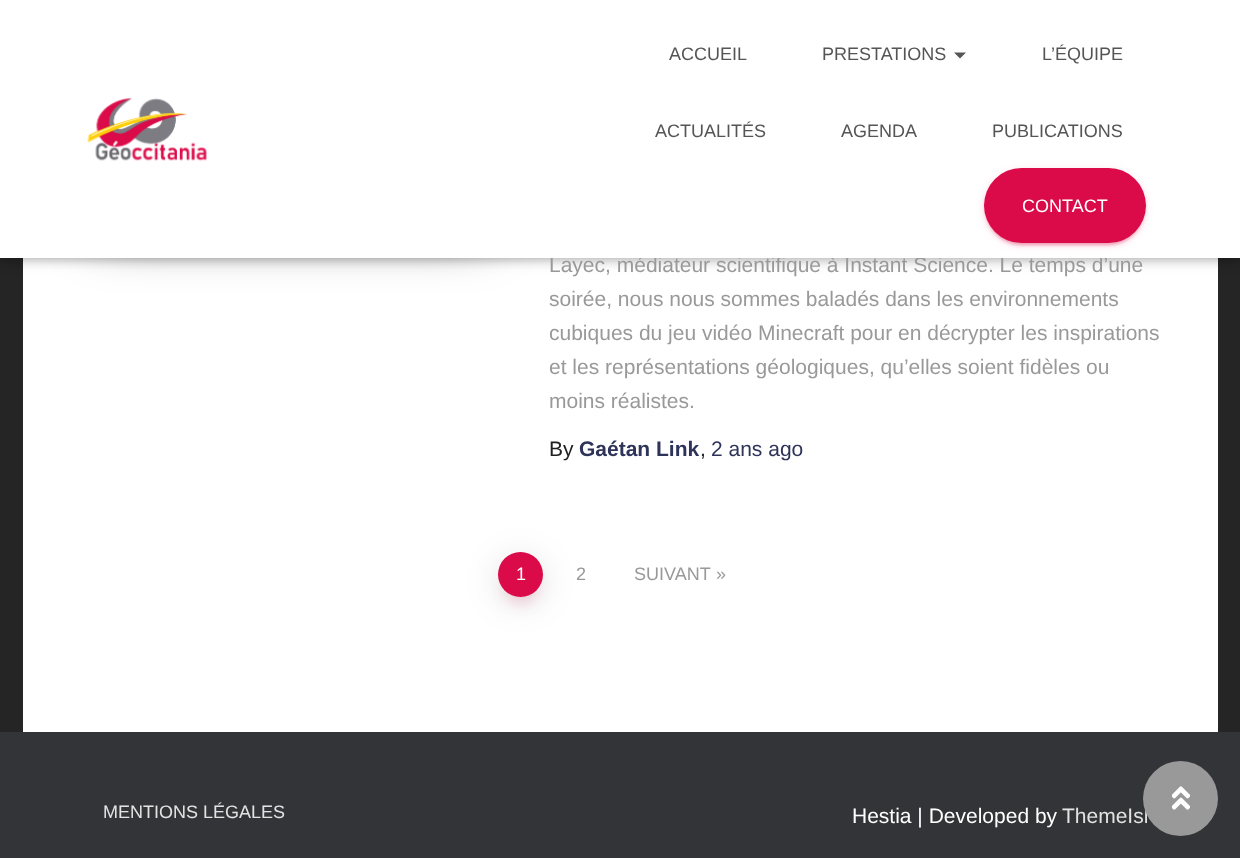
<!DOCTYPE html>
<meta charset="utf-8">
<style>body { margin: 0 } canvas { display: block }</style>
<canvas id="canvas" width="1240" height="858"></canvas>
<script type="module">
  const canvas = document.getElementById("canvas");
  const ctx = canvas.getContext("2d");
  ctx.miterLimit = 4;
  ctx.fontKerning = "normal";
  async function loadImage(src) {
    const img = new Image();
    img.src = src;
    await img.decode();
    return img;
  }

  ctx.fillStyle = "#252525";
  ctx.fillRect(0, 0, 1240, 858);
  ctx.fillStyle = "#ffffff";
  ctx.fillRect(23, 258, 1195, 474);
  ctx.fillStyle = "rgba(0, 0, 0, 0.1)";
  ctx.filter = "blur(4px)";
  ctx.beginPath();
  ctx.rect(3, 9, 1235, 252);
  ctx.fill();
  ctx.filter = "none";
  ctx.fillStyle = "rgba(0, 0, 0, 0.12)";
  ctx.filter = "blur(7.5px)";
  ctx.beginPath();
  ctx.rect(0, 2, 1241, 258);
  ctx.fill();
  ctx.filter = "none";
  ctx.fillStyle = "rgba(0, 0, 0, 0.42)";
  ctx.filter = "blur(7.5px)";
  ctx.beginPath();
  ctx.rect(9, 11, 1223, 240);
  ctx.fill();
  ctx.filter = "none";
  ctx.fillStyle = "rgba(0, 0, 0, 0.56)";
  ctx.filter = "blur(28.5px)";
  ctx.beginPath();
  ctx.rect(99, -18, 387, 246);
  ctx.fill();
  ctx.filter = "none";
  ctx.font = "21px Liberation Sans";
  ctx.fillStyle = "#999999";
  ctx.fillText("Layec, médiateur scientifique à Instant Science. Le temps d’une", 549, 272);
  ctx.fillStyle = "#ffffff";
  ctx.fillRect(0, 0, 1240, 258);
  ctx.drawImage(await loadImage("img1.png"), 87, 97, 120, 64);
  ctx.font = "18px Liberation Sans";
  ctx.fillStyle = "#555555";
  ctx.fillText("ACCUEIL", 669, 60);
  ctx.fillText("PRESTATIONS", 822, 60);
  ctx.beginPath();
  ctx.moveTo(954, 52.5);
  ctx.lineTo(966, 52.5);
  ctx.lineTo(960, 58.5);
  ctx.closePath();
  ctx.fill();
  ctx.fillText("L’ÉQUIPE", 1042, 60);
  ctx.fillText("ACTUALITÉS", 655, 137);
  ctx.fillText("AGENDA", 841, 137);
  ctx.fillText("PUBLICATIONS", 992, 137);
  ctx.fillStyle = "rgba(219, 11, 73, 0.12)";
  ctx.filter = "blur(4px)";
  ctx.beginPath();
  ctx.roundRect(984, 170, 162, 75, 37.5);
  ctx.fill();
  ctx.filter = "none";
  ctx.fillStyle = "rgba(219, 11, 73, 0.2)";
  ctx.filter = "blur(1px)";
  ctx.beginPath();
  ctx.roundRect(987, 176, 156, 69, 34.5);
  ctx.fill();
  ctx.filter = "none";
  ctx.fillStyle = "rgba(219, 11, 73, 0.14)";
  ctx.filter = "blur(1.5px)";
  ctx.beginPath();
  ctx.roundRect(984, 171, 162, 75, 37.5);
  ctx.fill();
  ctx.filter = "none";
  ctx.fillStyle = "#db0b49";
  ctx.beginPath();
  ctx.roundRect(984, 168, 162, 75, 37.5);
  ctx.fill();
  ctx.fillStyle = "#ffffff";
  ctx.fillText("CONTACT", 1022, 212);
  ctx.font = "21px Liberation Sans";
  ctx.fillStyle = "#999999";
  ctx.fillText("soirée, nous nous sommes baladés dans les environnements", 549, 306);
  ctx.fillText("cubiques du jeu vidéo Minecraft pour en décrypter les inspirations", 549, 340);
  ctx.fillText("et les représentations géologiques, qu’elles soient fidèles ou", 549, 374);
  ctx.fillText("moins réalistes.", 549, 408);
  ctx.fillStyle = "#212121";
  ctx.fillText("By", 549, 456);
  ctx.font = "bold 21px Liberation Sans";
  ctx.fillStyle = "#2d3359";
  ctx.fillText("Gaétan Link", 579, 456);
  ctx.font = "21px Liberation Sans";
  ctx.fillStyle = "#212121";
  ctx.fillText(",", 700, 456);
  ctx.fillStyle = "#2d3359";
  ctx.fillText("2 ans ago", 711, 456);
  ctx.fillStyle = "rgba(219, 11, 73, 0.2)";
  ctx.filter = "blur(7.5px)";
  ctx.beginPath();
  ctx.roundRect(506, 572, 30, 30, 15);
  ctx.fill();
  ctx.filter = "none";
  ctx.fillStyle = "rgba(0, 0, 0, 0.12)";
  ctx.filter = "blur(17px)";
  ctx.beginPath();
  ctx.roundRect(498, 558, 45, 45, 22.5);
  ctx.fill();
  ctx.filter = "none";
  ctx.fillStyle = "#db0b49";
  ctx.beginPath();
  ctx.arc(520.5, 574.5, 22.5, 0, Math.PI * 2);
  ctx.fill();
  ctx.font = "18px Liberation Sans";
  ctx.fillStyle = "#ffffff";
  ctx.fillText("1", 516, 580);
  ctx.fillStyle = "#999999";
  ctx.fillText("2", 576, 580);
  ctx.fillText("SUIVANT", 634, 580);
  ctx.fillText("»", 716, 580);
  ctx.fillStyle = "#323437";
  ctx.fillRect(0, 732, 1240, 126);
  ctx.fillStyle = "#e2e3e3";
  ctx.fillText("MENTIONS LÉGALES", 103, 818);
  ctx.font = "21px Liberation Sans";
  ctx.fillStyle = "#ffffff";
  ctx.fillText("Hestia | Developed by", 852, 823);
  ctx.fillStyle = "#e2e3e3";
  ctx.fillText("ThemeIsl", 1062, 823);
  ctx.fillStyle = "#999999";
  ctx.beginPath();
  ctx.arc(1180.5, 798.5, 37.5, 0, Math.PI * 2);
  ctx.fill();
  ctx.drawImage(await loadImage("img2.png"), 1172, 786, 18, 24);
</script>
